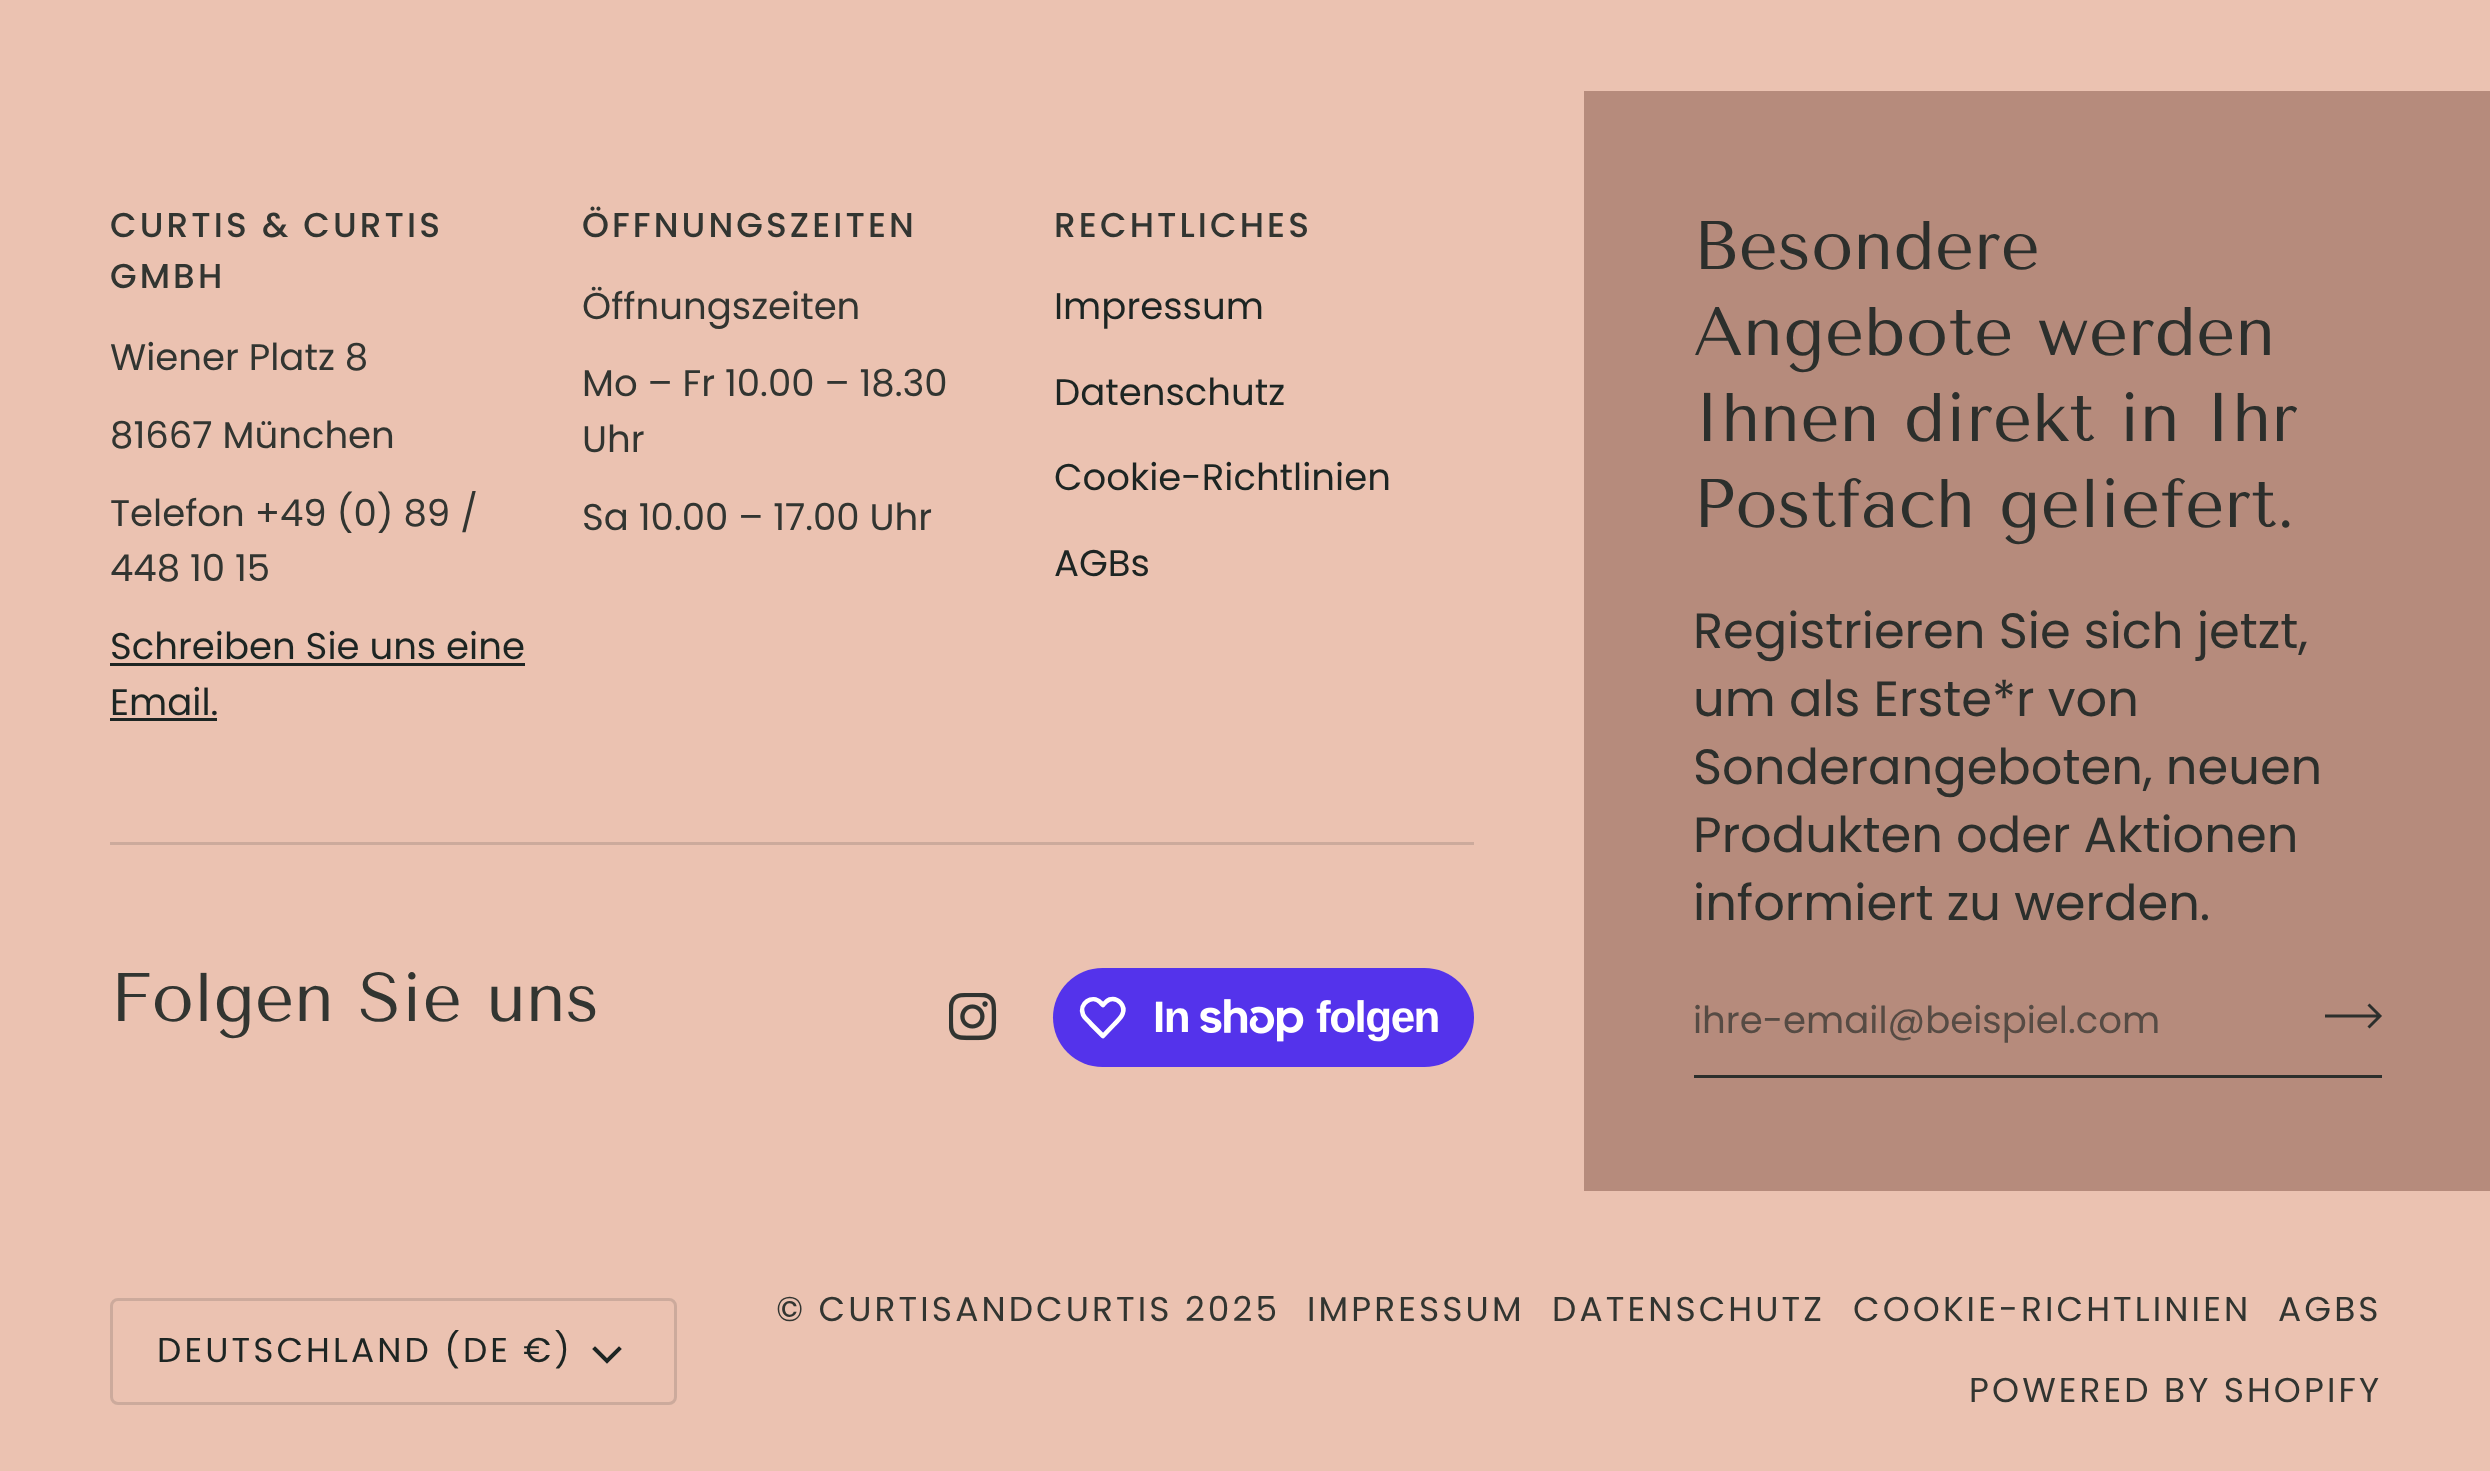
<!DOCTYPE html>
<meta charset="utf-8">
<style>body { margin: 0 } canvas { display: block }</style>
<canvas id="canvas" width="2490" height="1471"></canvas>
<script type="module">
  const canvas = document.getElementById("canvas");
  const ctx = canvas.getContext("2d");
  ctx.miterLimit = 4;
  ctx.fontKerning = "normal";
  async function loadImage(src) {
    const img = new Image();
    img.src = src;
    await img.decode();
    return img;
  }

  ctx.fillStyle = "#ebc2b1";
  ctx.fillRect(0, 0, 2490, 1471);
  ctx.letterSpacing = "3.1px";
  ctx.font = "500 34.4px Poppins";
  ctx.fillStyle = "#323531";
  ctx.fillText("CURTIS & CURTIS", 110, 237);
  ctx.fillText("GMBH", 110, 288);
  ctx.letterSpacing = "0px";
  ctx.font = "37.1px Poppins";
  ctx.fillText("Wiener Platz 8", 110, 370);
  ctx.fillText("81667 München", 110, 448);
  ctx.fillText("Telefon +49 (0) 89 /", 110, 526);
  ctx.fillText("448 10 15", 110, 581);
  ctx.fillStyle = "#1d2523";
  ctx.fillText("Schreiben Sie uns eine", 110, 659);
  ctx.fillRect(110, 663, 415, 3);
  ctx.fillText("Email.", 110, 715);
  ctx.fillRect(110, 718, 107, 3);
  ctx.letterSpacing = "3.1px";
  ctx.font = "500 34.4px Poppins";
  ctx.fillStyle = "#323531";
  ctx.fillText("ÖFFNUNGSZEITEN", 582, 237);
  ctx.letterSpacing = "0px";
  ctx.font = "37.1px Poppins";
  ctx.fillText("Öffnungszeiten", 582, 319);
  ctx.fillText("Mo – Fr 10.00 – 18.30", 582, 396);
  ctx.fillText("Uhr", 582, 452);
  ctx.fillText("Sa 10.00 – 17.00 Uhr", 582, 530);
  ctx.letterSpacing = "3.1px";
  ctx.font = "500 34.4px Poppins";
  ctx.fillText("RECHTLICHES", 1054, 237);
  ctx.letterSpacing = "0px";
  ctx.font = "37.1px Poppins";
  ctx.fillStyle = "#1d2523";
  ctx.fillText("Impressum", 1054, 319);
  ctx.fillText("Datenschutz", 1054, 405);
  ctx.fillText("Cookie-Richtlinien", 1054, 490);
  ctx.fillText("AGBs", 1054, 576);
  ctx.fillStyle = "#ccaa9c";
  ctx.fillRect(110, 842, 1364, 3);
  ctx.font = "68.75px Tenor Sans";
  ctx.fillStyle = "#323531";
  ctx.fillText("Folgen Sie uns", 110, 1021);
  ctx.drawImage(await loadImage("img1.png"), 949, 993, 48, 48);
  ctx.fillStyle = "#5433eb";
  ctx.beginPath();
  ctx.roundRect(1053, 968, 421, 99, 49.5);
  ctx.fill();
  ctx.beginPath();
  ctx.moveTo(1100.5, 1002.5);
  ctx.lineTo(1103, 1005);
  ctx.bezierCurveTo(1105, 1002.5, 1106.5, 1000.5, 1109.5, 999.5);
  ctx.bezierCurveTo(1118, 997, 1126, 1006, 1122.5, 1014);
  ctx.bezierCurveTo(1121, 1018, 1117, 1021, 1114.5, 1024);
  ctx.lineTo(1103, 1036);
  ctx.lineTo(1091, 1024);
  ctx.bezierCurveTo(1088.5, 1021, 1084.5, 1018, 1083, 1014.5);
  ctx.bezierCurveTo(1078.5, 1003.5, 1092.5, 994, 1100.5, 1002.5);
  ctx.closePath();
  ctx.strokeStyle = "#ffffff";
  ctx.lineWidth = 4.6;
  ctx.lineJoin = "round";
  ctx.stroke();
  ctx.letterSpacing = "-1.5px";
  ctx.font = "bold 44px Liberation Sans";
  ctx.fillStyle = "#ffffff";
  ctx.fillText("In", 1153, 1032);
  ctx.drawImage(await loadImage("img2.png"), 1200, 999, 104, 43);
  ctx.fillText("folgen", 1316, 1032);
  ctx.fillStyle = "#b68b7c";
  ctx.fillRect(1584, 91, 906, 1100);
  ctx.letterSpacing = "0px";
  ctx.font = "68.75px Tenor Sans";
  ctx.fillStyle = "#2c2f2c";
  ctx.fillText("Besondere", 1693, 269);
  ctx.fillText("Angebote werden", 1693, 355);
  ctx.fillText("Ihnen direkt in Ihr", 1693, 441);
  ctx.fillText("Postfach geliefert.", 1693, 527);
  ctx.font = "49.5px Poppins";
  ctx.fillText("Registrieren Sie sich jetzt,", 1693, 648);
  ctx.fillText("um als Erste*r von", 1693, 716);
  ctx.fillText("Sonderangeboten, neuen", 1693, 784);
  ctx.fillText("Produkten oder Aktionen", 1693, 852);
  ctx.fillText("informiert zu werden.", 1693, 920);
  ctx.fillRect(1694, 1075, 688, 3);
  ctx.font = "37.1px Poppins";
  ctx.fillStyle = "#564b44";
  ctx.fillText("ihre-email@beispiel.com", 1693, 1033);
  ctx.beginPath();
  ctx.moveTo(2368.5, 1004.5);
  ctx.lineTo(2380, 1016);
  ctx.lineTo(2368.5, 1027.5);
  ctx.moveTo(2325, 1016);
  ctx.lineTo(2380, 1016);
  ctx.strokeStyle = "#2c2f2c";
  ctx.lineWidth = 2.9;
  ctx.lineJoin = "miter";
  ctx.stroke();
  ctx.beginPath();
  ctx.roundRect(111.5, 1299.5, 564, 104, 6.5);
  ctx.strokeStyle = "#ccaa9c";
  ctx.lineWidth = 3;
  ctx.stroke();
  ctx.letterSpacing = "3.1px";
  ctx.font = "34.4px Poppins";
  ctx.fillStyle = "#1d2523";
  ctx.fillText("DEUTSCHLAND (DE €)", 157, 1362);
  ctx.beginPath();
  ctx.moveTo(595, 1349);
  ctx.lineTo(607, 1361);
  ctx.lineTo(619, 1349);
  ctx.strokeStyle = "#1d2523";
  ctx.lineWidth = 4;
  ctx.lineCap = "square";
  ctx.stroke();
  ctx.fillStyle = "#323531";
  ctx.fillText("© CURTISANDCURTIS", 776, 1321);
  ctx.fillText("2025", 1185, 1321);
  ctx.fillText("IMPRESSUM", 1307, 1321);
  ctx.fillText("DATENSCHUTZ", 1552, 1321);
  ctx.fillText("COOKIE-RICHTLINIEN", 1853, 1321);
  ctx.fillText("AGBS", 2278, 1321);
  ctx.fillText("POWERED BY SHOPIFY", 1969, 1402);
</script>
